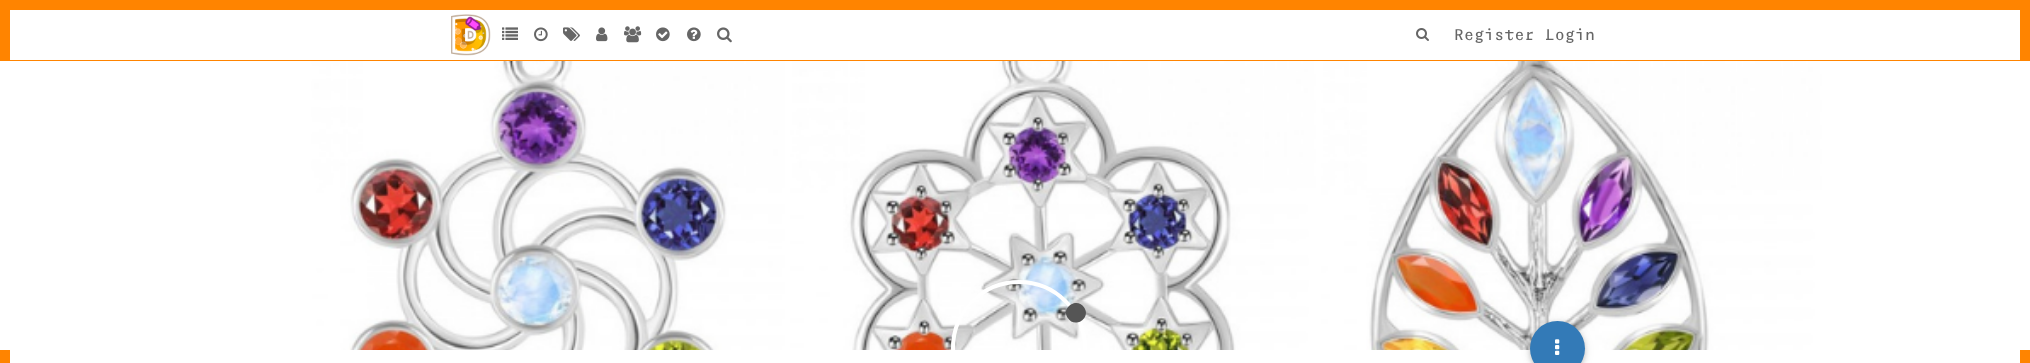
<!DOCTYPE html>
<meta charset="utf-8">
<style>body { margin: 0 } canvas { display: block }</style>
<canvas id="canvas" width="2030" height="363"></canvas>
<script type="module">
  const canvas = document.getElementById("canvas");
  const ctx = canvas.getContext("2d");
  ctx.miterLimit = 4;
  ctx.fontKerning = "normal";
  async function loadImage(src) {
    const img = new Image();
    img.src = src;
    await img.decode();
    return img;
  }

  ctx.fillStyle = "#ff8400";
  ctx.fillRect(0, 0, 2030, 363);
  ctx.fillStyle = "#ffffff";
  ctx.fillRect(10, 350, 2010, 13);
  ctx.fillRect(10, 10, 2010, 50);
  ctx.drawImage(await loadImage("img1.png"), 451, 14, 40, 42);
  ctx.drawImage(await loadImage("img2.png"), 502, 27, 16, 13);
  ctx.drawImage(await loadImage("img3.png"), 534, 27, 14, 15);
  ctx.drawImage(await loadImage("img4.png"), 563, 27, 17, 14);
  ctx.drawImage(await loadImage("img5.png"), 596, 27, 12, 15);
  ctx.drawImage(await loadImage("img6.png"), 624, 26, 18, 17);
  ctx.drawImage(await loadImage("img7.png"), 656, 27, 14, 15);
  ctx.drawImage(await loadImage("img8.png"), 687, 27, 14, 15);
  ctx.drawImage(await loadImage("img9.png"), 717, 27, 15, 16);
  ctx.drawImage(await loadImage("img10.png"), 1416, 28, 13, 13);
  ctx.font = "16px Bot";
  ctx.fillStyle = "#666666";
  ctx.fillText("Register Login", 1454, 40);
  ctx.drawImage(await loadImage("img11.png"), 0, 61, 2030, 289);
  ctx.beginPath();
  ctx.arc(1019, 348, 66, 0, Math.PI * 2);
  ctx.strokeStyle = "#ffffff";
  ctx.lineWidth = 4;
  ctx.stroke();
  ctx.fillStyle = "#555555";
  ctx.beginPath();
  ctx.moveTo(1084.5, 308);
  ctx.bezierCurveTo(1091, 319, 1074, 329, 1067.5, 317.5);
  ctx.bezierCurveTo(1061, 306.5, 1078, 296.5, 1084.5, 308);
  ctx.closePath();
  ctx.fill();
  ctx.fillStyle = "rgba(0, 0, 0, 0.12)";
  ctx.filter = "blur(5px)";
  ctx.beginPath();
  ctx.roundRect(1530, 323, 55, 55, 27.5);
  ctx.fill();
  ctx.filter = "none";
  ctx.fillStyle = "rgba(0, 0, 0, 0.16)";
  ctx.filter = "blur(2.5px)";
  ctx.beginPath();
  ctx.roundRect(1530, 323, 55, 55, 27.5);
  ctx.fill();
  ctx.filter = "none";
  ctx.fillStyle = "#337ab7";
  ctx.beginPath();
  ctx.arc(1557.5, 348.5, 27.5, 0, Math.PI * 2);
  ctx.fill();
  ctx.drawImage(await loadImage("img12.png"), 1555, 339, 5, 16);
</script>
